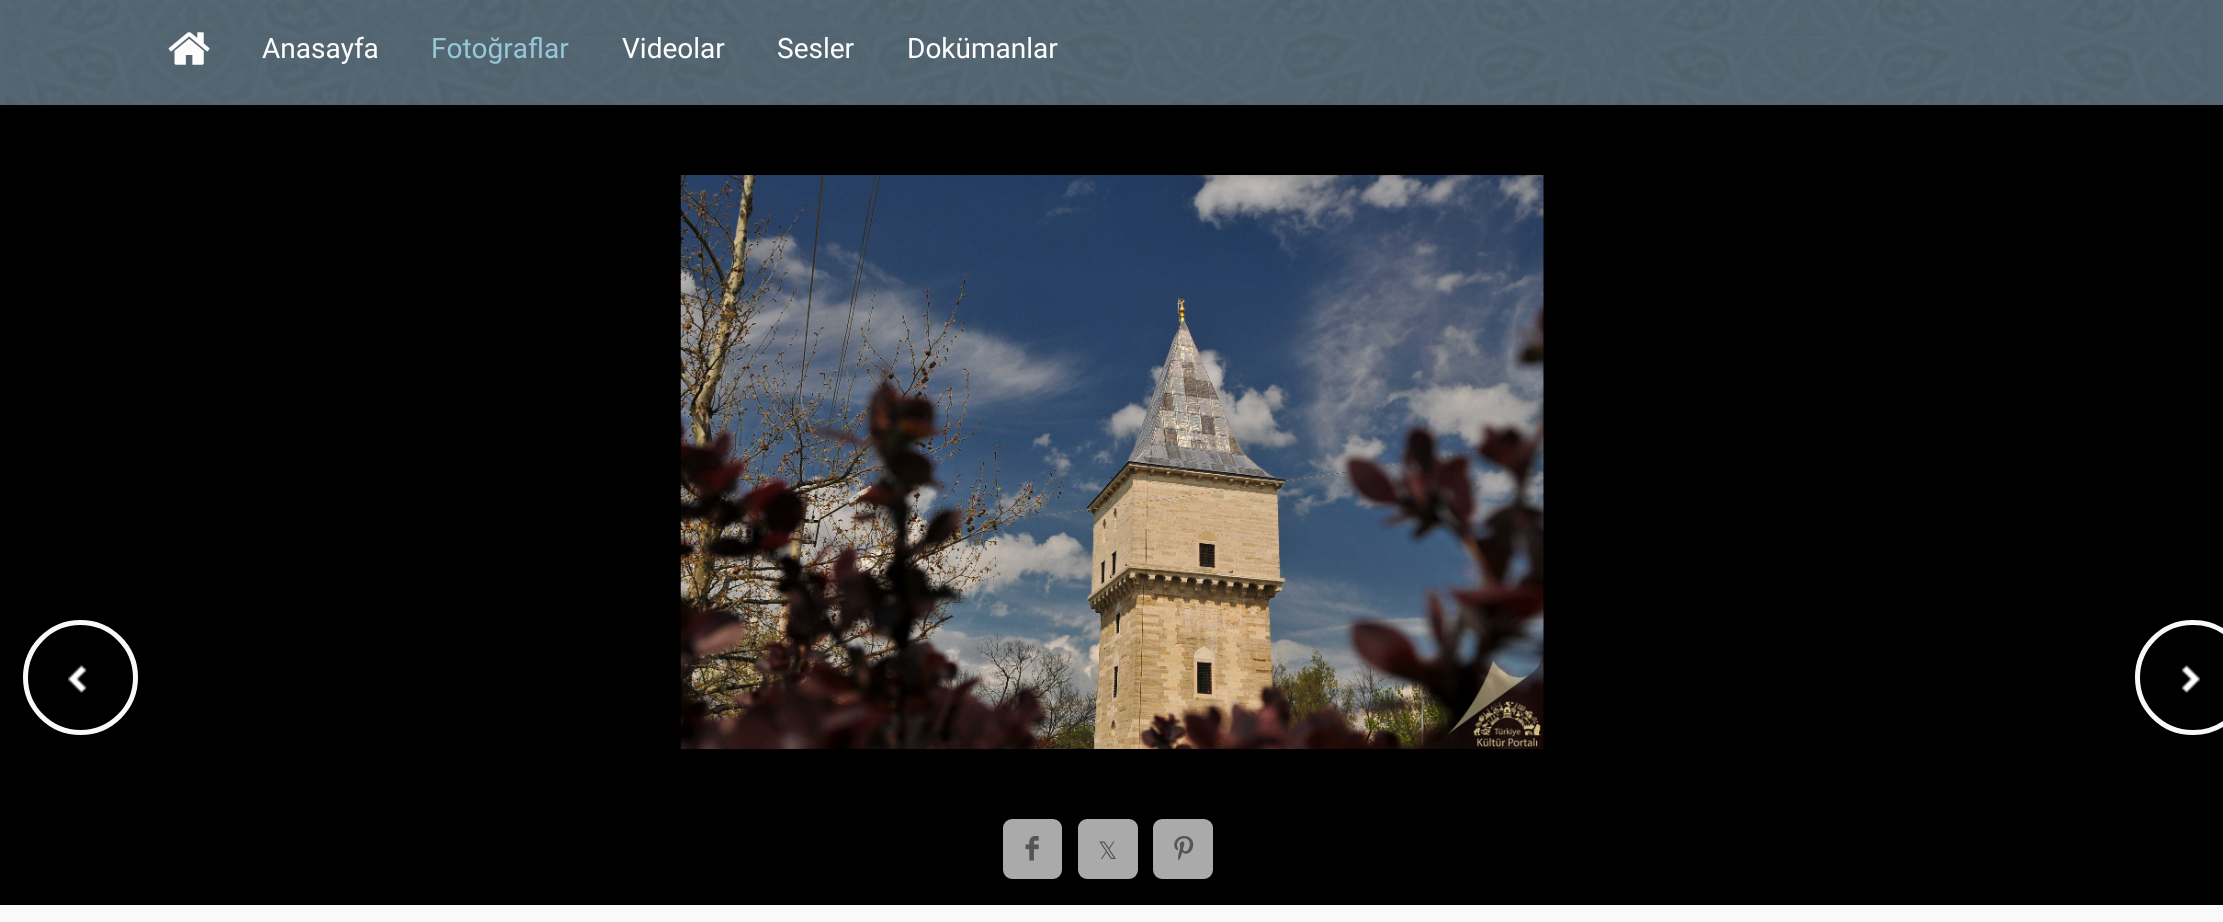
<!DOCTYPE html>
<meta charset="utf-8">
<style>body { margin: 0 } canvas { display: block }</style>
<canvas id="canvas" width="2223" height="922"></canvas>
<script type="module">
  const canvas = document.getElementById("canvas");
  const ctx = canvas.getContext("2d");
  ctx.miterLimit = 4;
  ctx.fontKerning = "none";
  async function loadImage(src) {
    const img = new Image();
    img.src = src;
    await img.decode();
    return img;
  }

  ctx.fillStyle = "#f9f9f9";
  ctx.fillRect(0, 0, 2223, 922);
  ctx.fillStyle = "#546672";
  ctx.fillRect(0, 0, 2223, 105);
  ctx.drawImage(await loadImage("img1.png"), 4, 0, 2204, 105);
  ctx.drawImage(await loadImage("img2.png"), 168, 32, 42, 33);
  ctx.font = "28px Roboto";
  ctx.fillStyle = "#fcfcfc";
  ctx.fillText("Anasayfa", 262, 58);
  ctx.fillStyle = "#95c8d6";
  ctx.fillText("Fotoğraflar", 431, 58);
  ctx.fillStyle = "#fcfcfc";
  ctx.fillText("Videolar", 622, 58);
  ctx.fillText("Sesler", 777, 58);
  ctx.fillText("Dokümanlar", 907, 58);
  ctx.fillStyle = "#000000";
  ctx.fillRect(0, 105, 2223, 800);
  ctx.drawImage(await loadImage("img3.png"), 68, 665, 19, 28);
  ctx.beginPath();
  ctx.arc(80.5, 677.5, 55, 0, Math.PI * 2);
  ctx.strokeStyle = "#f9f9f9";
  ctx.lineWidth = 5;
  ctx.stroke();
  ctx.drawImage(await loadImage("img4.png"), 680, 175, 864, 574);
  ctx.drawImage(await loadImage("img5.png"), 2181, 665, 19, 28);
  ctx.beginPath();
  ctx.roundRect(2137.5, 622.5, 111, 110, 55);
  ctx.stroke();
  ctx.fillStyle = "#aaaaaa";
  ctx.beginPath();
  ctx.roundRect(1004, 820, 57, 58, 8);
  ctx.fill();
  ctx.strokeStyle = "#aaaaaa";
  ctx.lineWidth = 2;
  ctx.stroke();
  ctx.drawImage(await loadImage("img6.png"), 1025, 836, 14, 25);
  ctx.beginPath();
  ctx.roundRect(1079, 820, 58, 58, 8);
  ctx.fill();
  ctx.stroke();
  ctx.font = "24px DejaVu Sans";
  ctx.fillStyle = "#555555";
  ctx.fillText("𝕏", 1098, 859);
  ctx.fillStyle = "#aaaaaa";
  ctx.beginPath();
  ctx.roundRect(1154, 820, 58, 58, 8);
  ctx.fill();
  ctx.stroke();
  ctx.drawImage(await loadImage("img7.png"), 1174, 836, 20, 25);
</script>
